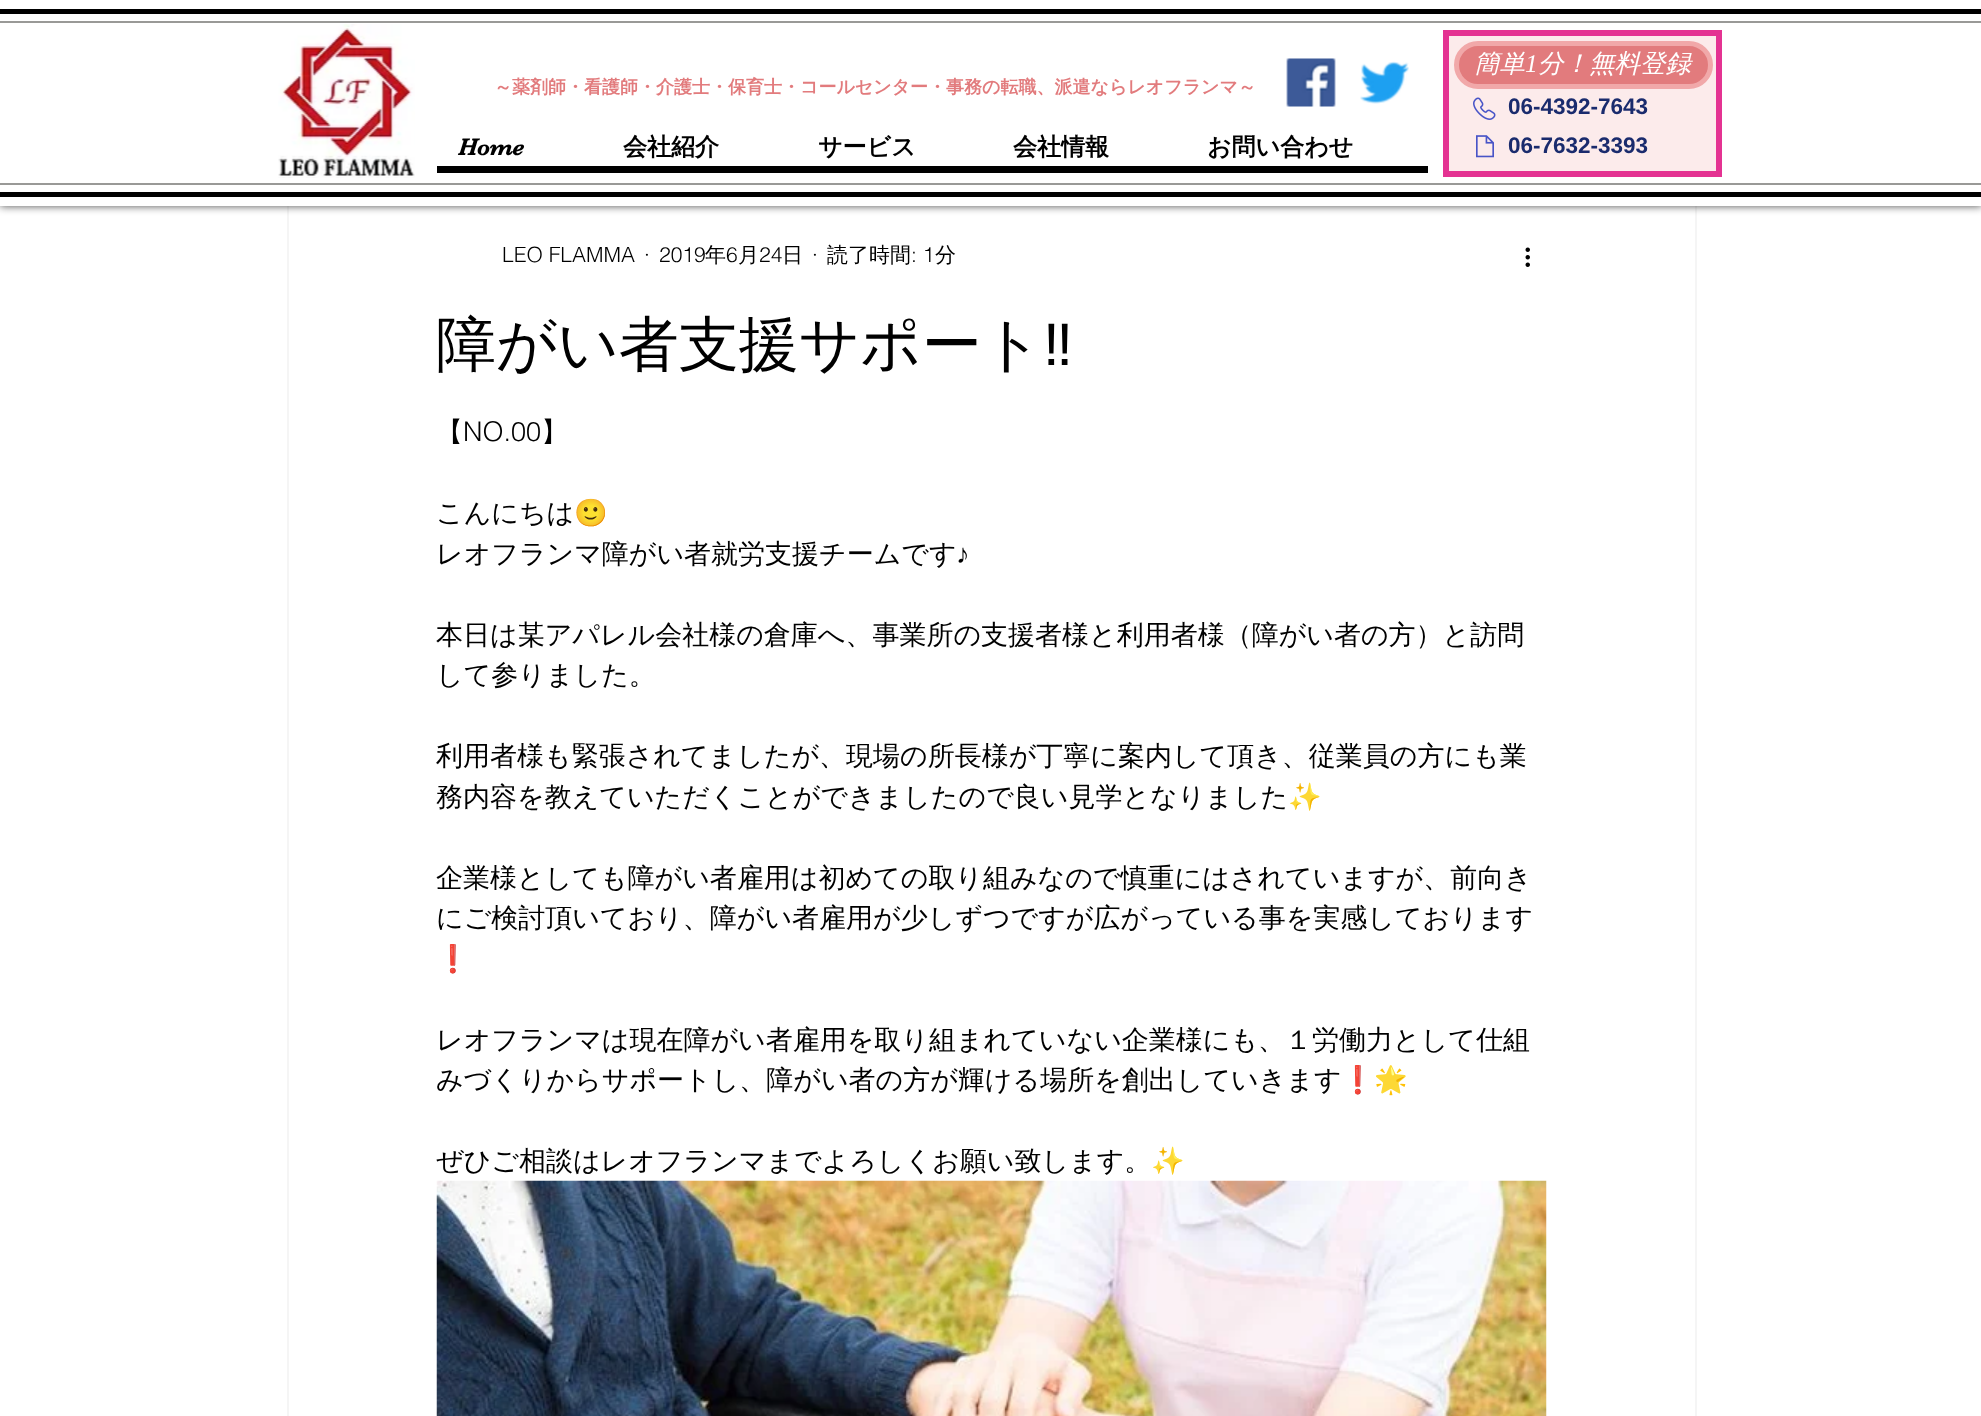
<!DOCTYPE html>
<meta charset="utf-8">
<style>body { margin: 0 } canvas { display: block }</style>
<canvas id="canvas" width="1981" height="1416"></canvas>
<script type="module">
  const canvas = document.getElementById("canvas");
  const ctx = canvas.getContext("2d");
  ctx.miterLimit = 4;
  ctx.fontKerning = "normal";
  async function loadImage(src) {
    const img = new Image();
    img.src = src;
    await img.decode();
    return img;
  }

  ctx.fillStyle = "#ffffff";
  ctx.fillRect(0, 0, 1981, 1416);
  ctx.strokeStyle = "#f5f5f5";
  ctx.lineWidth = 2;
  ctx.strokeRect(288, 141, 1408, 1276);
  ctx.fillStyle = "rgba(0, 0, 0, 0.7)";
  ctx.filter = "blur(4px)";
  ctx.beginPath();
  ctx.rect(0, 0, 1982, 206);
  ctx.fill();
  ctx.filter = "none";
  ctx.fillStyle = "#ffffff";
  ctx.fillRect(0, 0, 1981, 206);
  ctx.fillStyle = "#000000";
  ctx.fillRect(0, 9, 1981, 5);
  ctx.fillRect(0, 192, 1981, 5);
  ctx.fillStyle = "#999997";
  ctx.fillRect(0, 21, 1981, 2);
  ctx.fillRect(0, 183, 1981, 2);
  ctx.drawImage(await loadImage("img1.png"), 278, 24, 137, 154);
  ctx.font = "bold 18px WenQuanYi Zen Hei";
  ctx.fillStyle = "#e27b7d";
  ctx.fillText("～薬剤師・看護師・介護士・保育士・コールセンター・事務の転職、派遣ならレオフランマ～", 494, 93);
  ctx.drawImage(await loadImage("img2.png"), 1286, 58, 50, 49);
  ctx.drawImage(await loadImage("img3.png"), 1360, 61, 49, 43);
  ctx.fillStyle = "#fcebeb";
  ctx.beginPath();
  ctx.rect(1446, 33, 273, 141);
  ctx.fill();
  ctx.strokeStyle = "#e43292";
  ctx.lineWidth = 6;
  ctx.stroke();
  ctx.fillStyle = "#e27b7d";
  ctx.beginPath();
  ctx.roundRect(1456.5, 43.5, 254, 43, 21.5);
  ctx.fill();
  ctx.strokeStyle = "#f1a8a9";
  ctx.lineWidth = 5;
  ctx.stroke();
  ctx.font = "italic 500 25.5px WenQuanYi Zen Hei";
  ctx.fillStyle = "#ffffff";
  ctx.fillText("簡単", 1474, 72);
  ctx.font = "italic 25.5px Liberation Serif";
  ctx.fillText("1", 1525, 72);
  ctx.font = "italic 500 25.5px WenQuanYi Zen Hei";
  ctx.fillText("分！無料登録", 1538, 72);
  ctx.fillStyle = "#000000";
  ctx.fillRect(437, 166, 991, 7);
  ctx.font = "bold 24px 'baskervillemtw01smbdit'";
  ctx.fillText("Home", 458, 155);
  ctx.font = "bold 24px WenQuanYi Zen Hei";
  ctx.fillText("会社紹介", 623, 155);
  ctx.fillText("サービス", 818, 155);
  ctx.fillText("会社情報", 1013, 155);
  ctx.fillText("お問い合わせ", 1207, 155);
  ctx.drawImage(await loadImage("img4.png"), 1473, 97, 23, 23);
  ctx.font = "bold 22.5px Liberation Sans";
  ctx.fillStyle = "#1a2b6d";
  ctx.fillText("06-4392-7643", 1508, 114);
  ctx.drawImage(await loadImage("img5.png"), 1476, 135, 18, 23);
  ctx.fillText("06-7632-3393", 1508, 153);
  ctx.font = "300 21px helvetica";
  ctx.fillStyle = "#000000";
  ctx.fillText("LEO FLAMMA", 502, 262);
  ctx.fillText("·", 644, 262);
  ctx.fillText("2019", 659, 262);
  ctx.font = "500 21px WenQuanYi Zen Hei";
  ctx.fillText("年", 705, 262);
  ctx.font = "300 21px helvetica";
  ctx.fillText("6", 726, 262);
  ctx.font = "500 21px WenQuanYi Zen Hei";
  ctx.fillText("月", 738, 262);
  ctx.font = "300 21px helvetica";
  ctx.fillText("24", 759, 262);
  ctx.font = "500 21px WenQuanYi Zen Hei";
  ctx.fillText("日", 782, 262);
  ctx.font = "300 21px helvetica";
  ctx.fillText("·", 812, 262);
  ctx.font = "500 21px WenQuanYi Zen Hei";
  ctx.fillText("読了時間", 827, 262);
  ctx.font = "300 21px helvetica";
  ctx.fillText(": 1", 911, 262);
  ctx.font = "500 21px WenQuanYi Zen Hei";
  ctx.fillText("分", 935, 262);
  ctx.drawImage(await loadImage("img6.png"), 1525, 247, 5, 20);
  ctx.font = "500 60px WenQuanYi Zen Hei";
  ctx.fillText("障がい者支援サポート", 436, 365);
  ctx.font = "60px Liberation Sans";
  ctx.fillText("‼", 1043, 365);
  ctx.font = "500 27px WenQuanYi Zen Hei";
  ctx.fillText("【", 436, 441);
  ctx.font = "300 27px helvetica";
  ctx.fillText("NO.00", 463, 441);
  ctx.font = "500 27px WenQuanYi Zen Hei";
  ctx.fillText("】", 541, 441);
  ctx.fillText("こんにちは", 436, 522);
  ctx.font = "27px Noto Color Emoji";
  ctx.fillText("🙂", 574, 522);
  ctx.font = "500 27px WenQuanYi Zen Hei";
  ctx.fillText("レオフランマ障がい者就労支援チームです", 436, 563);
  ctx.font = "27px Liberation Sans";
  ctx.fillText("♪", 956, 563);
  ctx.font = "500 27px WenQuanYi Zen Hei";
  ctx.fillText("本日は某アパレル会社様の倉庫へ、事業所の支援者様と利用者様（障がい者の方）と訪問", 436, 644);
  ctx.fillText("して参りました。", 436, 684);
  ctx.fillText("利用者様も緊張されてましたが、現場の所長様が丁寧に案内して頂き、従業員の方にも業", 436, 765);
  ctx.fillText("務内容を教えていただくことができましたので良い見学となりました", 436, 806);
  ctx.font = "27px Noto Color Emoji";
  ctx.fillText("✨", 1288, 806);
  ctx.font = "500 27px WenQuanYi Zen Hei";
  ctx.fillText("企業様としても障がい者雇用は初めての取り組みなので慎重にはされていますが、前向き", 436, 887);
  ctx.fillText("にご検討頂いており、障がい者雇用が少しずつですが広がっている事を実感しております", 436, 927);
  ctx.font = "27px Noto Color Emoji";
  ctx.fillText("❗️", 436, 968);
  ctx.font = "500 27px WenQuanYi Zen Hei";
  ctx.fillText("レオフランマは現在障がい者雇用を取り組まれていない企業様にも、１労働力として仕組", 436, 1049);
  ctx.fillText("みづくりからサポートし、障がい者の方が輝ける場所を創出していきます", 436, 1089);
  ctx.font = "27px Noto Color Emoji";
  ctx.fillText("❗️🌟", 1341, 1089);
  ctx.font = "500 27px WenQuanYi Zen Hei";
  ctx.fillText("ぜひご相談はレオフランマまでよろしくお願い致します。", 436, 1170);
  ctx.font = "27px Noto Color Emoji";
  ctx.fillText("✨", 1151, 1170);
  ctx.drawImage(await loadImage("img7.png"), 436, 1180, 1111, 236);
</script>
